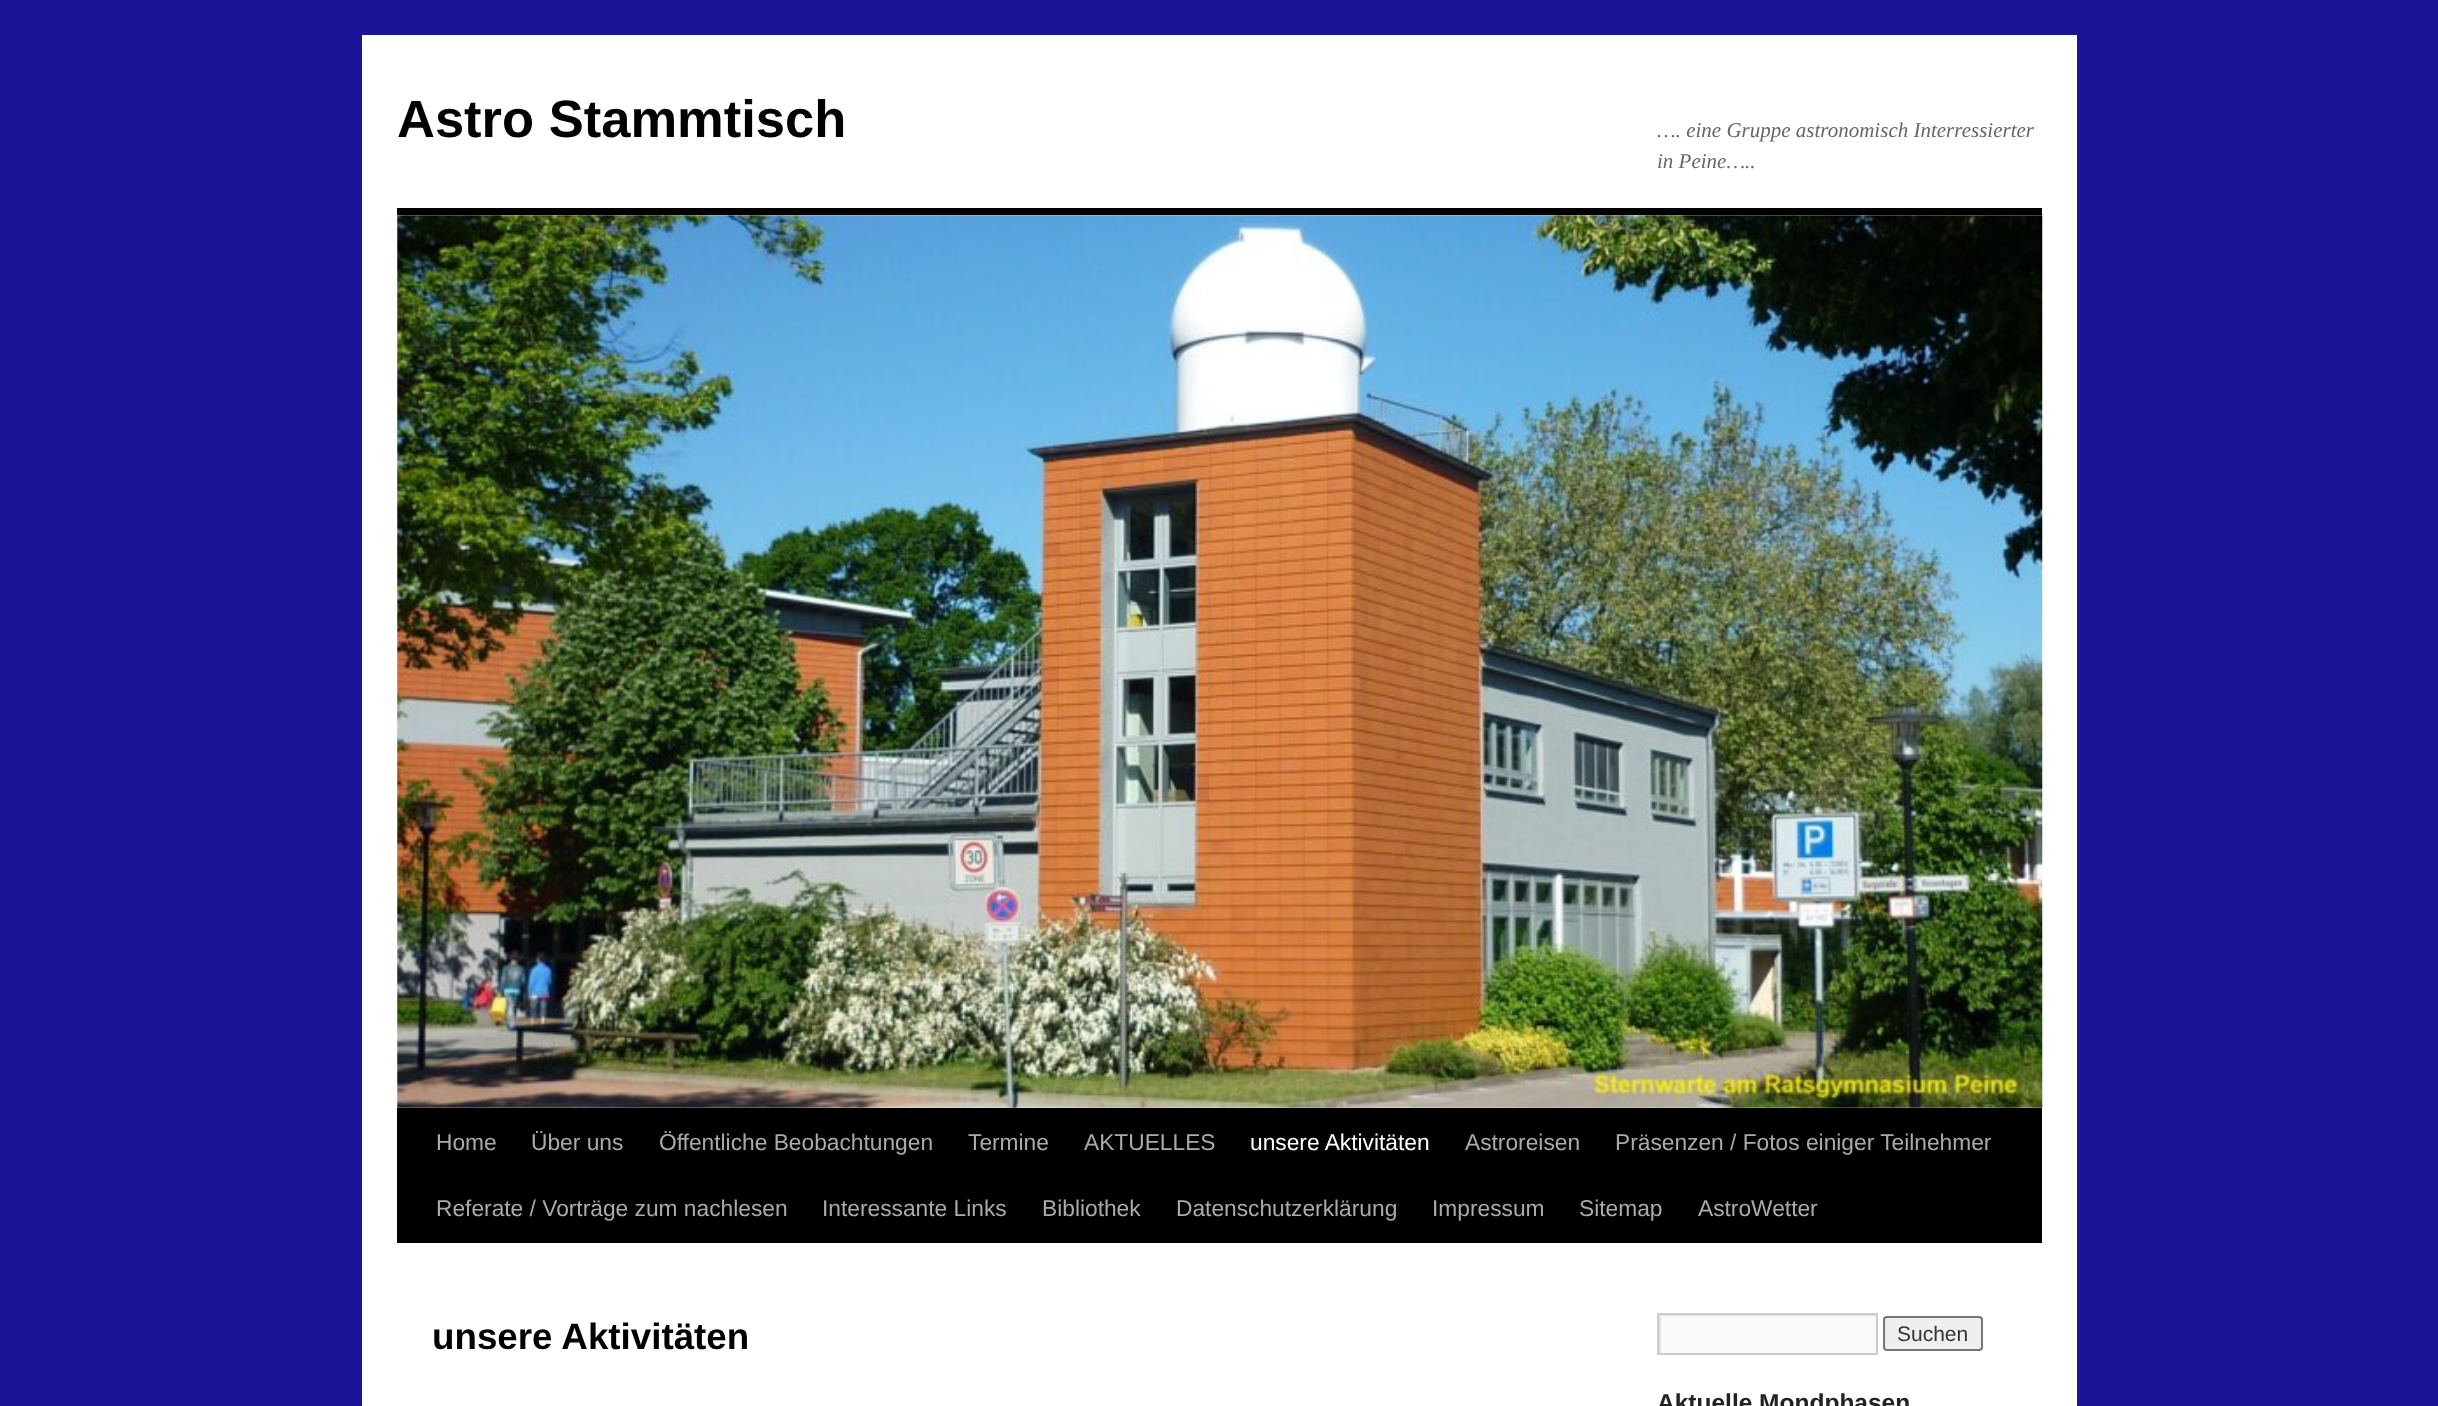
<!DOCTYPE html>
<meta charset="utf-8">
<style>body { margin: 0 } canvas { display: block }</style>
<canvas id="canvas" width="2438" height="1406"></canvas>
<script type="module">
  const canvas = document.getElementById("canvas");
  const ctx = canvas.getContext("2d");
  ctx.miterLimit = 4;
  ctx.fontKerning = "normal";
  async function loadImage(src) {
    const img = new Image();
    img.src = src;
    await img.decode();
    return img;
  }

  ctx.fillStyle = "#191596";
  ctx.fillRect(0, 0, 2438, 1406);
  ctx.fillStyle = "#ffffff";
  ctx.fillRect(362, 35, 1715, 1371);
  ctx.font = "bold 52.5px Liberation Sans";
  ctx.fillStyle = "#000000";
  ctx.fillText("Astro Stammtisch", 397, 137);
  ctx.font = "italic 21px Liberation Serif";
  ctx.fillStyle = "#666666";
  ctx.fillText("…. eine Gruppe astronomisch Interressierter", 1657, 137);
  ctx.fillText("in Peine…..", 1657, 168);
  ctx.fillStyle = "#000000";
  ctx.fillRect(397, 208, 1645, 7);
  ctx.fillRect(397, 1108, 1645, 135);
  ctx.drawImage(await loadImage("img1.png"), 397, 215, 1646, 893);
  ctx.font = "22.75px Liberation Sans";
  ctx.fillStyle = "#aaaaaa";
  ctx.fillText("Home", 436, 1150);
  ctx.fillText("Über uns", 531, 1150);
  ctx.fillText("Öffentliche Beobachtungen", 659, 1150);
  ctx.fillText("Termine", 968, 1150);
  ctx.fillText("AKTUELLES", 1084, 1150);
  ctx.fillStyle = "#ffffff";
  ctx.fillText("unsere Aktivitäten", 1250, 1150);
  ctx.fillStyle = "#aaaaaa";
  ctx.fillText("Astroreisen", 1465, 1150);
  ctx.fillText("Präsenzen / Fotos einiger Teilnehmer", 1615, 1150);
  ctx.fillText("Referate / Vorträge zum nachlesen", 436, 1216);
  ctx.fillText("Interessante Links", 822, 1216);
  ctx.fillText("Bibliothek", 1042, 1216);
  ctx.fillText("Datenschutzerklärung", 1176, 1216);
  ctx.fillText("Impressum", 1432, 1216);
  ctx.fillText("Sitemap", 1579, 1216);
  ctx.fillText("AstroWetter", 1698, 1216);
  ctx.font = "bold 36.75px Liberation Sans";
  ctx.fillStyle = "#000000";
  ctx.fillText("unsere Aktivitäten", 432, 1349);
  ctx.fillStyle = "#f9f9f9";
  ctx.fillRect(1661, 1316, 215, 37);
  ctx.save();
  ctx.beginPath();
  ctx.rect(1659, 1314, 217, 39);
  ctx.clip();
  ctx.fillStyle = "#e0e0e0";
  ctx.beginPath();
  ctx.moveTo(1486, 1141);
  ctx.lineTo(2049, 1141);
  ctx.lineTo(2049, 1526);
  ctx.lineTo(1486, 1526);
  ctx.closePath();
  ctx.moveTo(1661, 1316);
  ctx.lineTo(1878, 1316);
  ctx.lineTo(1878, 1354);
  ctx.lineTo(1661, 1354);
  ctx.closePath();
  ctx.fill("evenodd");
  ctx.restore();
  ctx.strokeStyle = "#cccccc";
  ctx.lineWidth = 2;
  ctx.strokeRect(1658, 1314, 219, 40);
  ctx.fillStyle = "#efefef";
  ctx.beginPath();
  ctx.roundRect(1884, 1317, 98, 33, 3);
  ctx.fill();
  ctx.strokeStyle = "#767676";
  ctx.stroke();
  ctx.font = "21px Liberation Sans";
  ctx.fillStyle = "#333333";
  ctx.fillText("Suchen", 1897, 1341);
  ctx.font = "bold 24.5px Liberation Sans";
  ctx.fillStyle = "#222222";
  ctx.fillText("Aktuelle Mondphasen", 1657, 1411);
</script>
